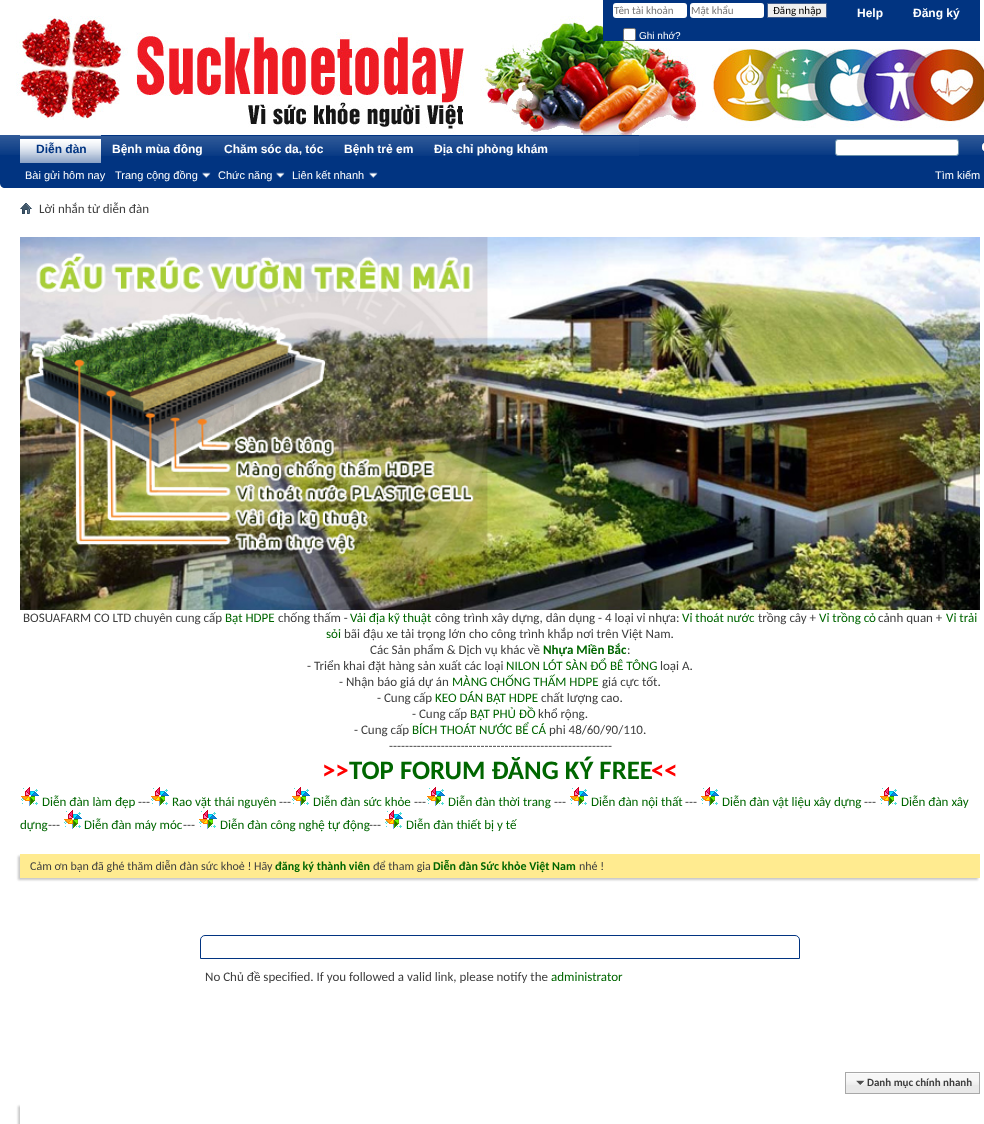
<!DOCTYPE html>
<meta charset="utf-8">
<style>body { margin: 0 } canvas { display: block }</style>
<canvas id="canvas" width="984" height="1124"></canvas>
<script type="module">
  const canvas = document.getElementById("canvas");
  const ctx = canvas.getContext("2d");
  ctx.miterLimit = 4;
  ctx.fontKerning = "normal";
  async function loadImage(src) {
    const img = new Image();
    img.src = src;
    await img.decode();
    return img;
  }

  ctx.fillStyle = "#ffffff";
  ctx.fillRect(0, 0, 984, 1124);
  ctx.drawImage(await loadImage("img1.png"), 0, 0, 984, 135);
  ctx.fillStyle = "#013481";
  ctx.fillRect(603, 0, 377, 41);
  ctx.fillStyle = "#ffffff";
  ctx.beginPath();
  ctx.roundRect(613, 3, 74, 15, 3);
  ctx.fill();
  ctx.font = "11px Carlito";
  ctx.fillStyle = "#777777";
  ctx.fillText("Tên tài khoản", 614, 14);
  ctx.fillStyle = "#ffffff";
  ctx.beginPath();
  ctx.roundRect(690, 3, 74, 15, 3);
  ctx.fill();
  ctx.fillStyle = "#777777";
  ctx.fillText("Mật khẩu", 691, 14);
  ctx.fillStyle = "#efefef";
  ctx.beginPath();
  ctx.rect(767.5, 3.5, 59, 14);
  ctx.fill();
  ctx.strokeStyle = "#415d8d";
  ctx.stroke();
  ctx.fillStyle = "#000000";
  ctx.fillText("Ðăng nhập", 773, 14);
  ctx.fillStyle = "#ffffff";
  ctx.beginPath();
  ctx.roundRect(623.5, 28.5, 12, 12, 1.5);
  ctx.fill();
  ctx.strokeStyle = "#767676";
  ctx.stroke();
  ctx.font = "10px Liberation Sans";
  ctx.fillText("Ghi nhớ?", 639, 39);
  ctx.font = "bold 12px Liberation Sans";
  ctx.fillText("Help", 857, 17);
  ctx.fillText("Đăng ký", 913, 17);
  ctx.fillStyle = "#013481";
  ctx.beginPath();
  ctx.moveTo(0, 135);
  ctx.lineTo(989, 135);
  ctx.lineTo(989, 183);
  ctx.bezierCurveTo(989, 186, 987, 188, 984, 188);
  ctx.lineTo(5, 188);
  ctx.bezierCurveTo(2, 188, 0, 186, 0, 183);
  ctx.closePath();
  ctx.fill();
  ctx.drawImage(await loadImage("img2.png"), 0, 135, 984, 20);
  ctx.drawImage(await loadImage("img3.png"), 20, 135, 81, 28);
  ctx.fillText("Diễn đàn", 36, 153);
  ctx.font = "11px Liberation Sans";
  ctx.fillStyle = "#ffffff";
  ctx.fillText("Bài gửi hôm nay", 25, 179);
  ctx.fillText("Trang cộng đồng", 115, 179);
  ctx.drawImage(await loadImage("img4.png"), 202, 172, 9, 6);
  ctx.fillText("Chức năng", 218, 179);
  ctx.drawImage(await loadImage("img4.png"), 276, 172, 9, 6);
  ctx.fillText("Liên kết nhanh", 292, 179);
  ctx.drawImage(await loadImage("img4.png"), 369, 172, 9, 6);
  ctx.fillStyle = "#013481";
  ctx.fillRect(101, 135, 538, 20);
  ctx.drawImage(await loadImage("img5.png"), 558, 136, 81, 20);
  ctx.drawImage(await loadImage("img6.png"), 101, 136, 112, 20);
  ctx.font = "bold 12px Liberation Sans";
  ctx.fillStyle = "#ffffff";
  ctx.fillText("Bệnh mùa đông", 112, 153);
  ctx.drawImage(await loadImage("img7.png"), 213, 136, 120, 20);
  ctx.fillText("Chăm sóc da, tóc", 224, 153);
  ctx.drawImage(await loadImage("img8.png"), 333, 136, 90, 20);
  ctx.fillText("Bệnh trẻ em", 344, 153);
  ctx.drawImage(await loadImage("img9.png"), 423, 136, 135, 20);
  ctx.fillText("Địa chỉ phòng khám", 434, 153);
  ctx.beginPath();
  ctx.roundRect(835.5, 139.5, 123, 16, 2.5);
  ctx.fill();
  ctx.strokeStyle = "#6b91ab";
  ctx.stroke();
  ctx.drawImage(await loadImage("img10.png"), 982, 143, 2, 8);
  ctx.font = "11px Liberation Sans";
  ctx.fillText("Tìm kiếm", 935, 179);
  ctx.drawImage(await loadImage("img11.png"), 20, 203, 12, 11);
  ctx.font = "13px Carlito";
  ctx.fillStyle = "#3e3e3e";
  ctx.fillText("Lời nhắn từ diễn đàn", 39, 213);
  ctx.drawImage(await loadImage("img12.png"), 20, 237, 960, 373);
  ctx.fillText("BOSUAFARM CO LTD chuyên cung cấp", 23, 622);
  ctx.fillStyle = "#006600";
  ctx.fillText("Bạt HDPE", 225, 622);
  ctx.fillStyle = "#3e3e3e";
  ctx.fillText("chống thấm -", 278, 622);
  ctx.fillStyle = "#006600";
  ctx.fillText("Vải địa kỹ thuật", 350, 622);
  ctx.fillStyle = "#3e3e3e";
  ctx.fillText("công trình xây dựng, dân dụng - 4 loại vỉ nhựa:", 435, 622);
  ctx.fillStyle = "#006600";
  ctx.fillText("Vỉ thoát nước", 682, 622);
  ctx.fillStyle = "#3e3e3e";
  ctx.fillText("trồng cây +", 758, 622);
  ctx.fillStyle = "#006600";
  ctx.fillText("Vỉ trồng cỏ", 819, 622);
  ctx.fillStyle = "#3e3e3e";
  ctx.fillText("cảnh quan +", 878, 622);
  ctx.fillStyle = "#006600";
  ctx.fillText("Vỉ trải", 946, 622);
  ctx.fillText("sỏi", 326, 638);
  ctx.fillStyle = "#3e3e3e";
  ctx.fillText("bãi đậu xe tải trọng lớn cho công trình khắp nơi trên Việt Nam.", 344, 638);
  ctx.fillText("Các Sản phẩm & Dịch vụ khác về", 370, 654);
  ctx.font = "bold 13px Carlito";
  ctx.fillStyle = "#006600";
  ctx.fillText("Nhựa Miền Bắc", 543, 654);
  ctx.font = "13px Carlito";
  ctx.fillStyle = "#3e3e3e";
  ctx.fillText(":", 627, 654);
  ctx.fillText("- Triển khai đặt hàng sản xuất các loại", 307, 670);
  ctx.fillStyle = "#006600";
  ctx.fillText("NILON LÓT SÀN ĐỔ BÊ TÔNG", 506, 670);
  ctx.fillStyle = "#3e3e3e";
  ctx.fillText("loại A.", 660, 670);
  ctx.fillText("- Nhận báo giá dự án", 339, 686);
  ctx.fillStyle = "#006600";
  ctx.fillText("MÀNG CHỐNG THẤM HDPE", 452, 686);
  ctx.fillStyle = "#3e3e3e";
  ctx.fillText("giá cực tốt.", 602, 686);
  ctx.fillText("- Cung cấp", 377, 702);
  ctx.fillStyle = "#006600";
  ctx.fillText("KEO DÁN BẠT HDPE", 435, 702);
  ctx.fillStyle = "#3e3e3e";
  ctx.fillText("chất lượng cao.", 541, 702);
  ctx.fillText("- Cung cấp", 412, 718);
  ctx.fillStyle = "#006600";
  ctx.fillText("BẠT PHỦ ĐỒ", 470, 718);
  ctx.fillStyle = "#3e3e3e";
  ctx.fillText("khổ rộng.", 538, 718);
  ctx.fillText("- Cung cấp", 354, 734);
  ctx.fillStyle = "#006600";
  ctx.fillText("BÍCH THOÁT NƯỚC BỂ CÁ", 412, 734);
  ctx.fillStyle = "#3e3e3e";
  ctx.fillText("phi 48/60/90/110.", 549, 734);
  ctx.fillText("--------------------------------------------------------", 389, 750);
  ctx.font = "bold 26.75px Carlito";
  ctx.fillStyle = "#ff0000";
  ctx.fillText(">>", 322, 779);
  ctx.fillStyle = "#006600";
  ctx.fillText("TOP FORUM ĐĂNG KÝ FREE", 349, 779);
  ctx.fillStyle = "#ff0000";
  ctx.fillText("<<", 651, 779);
  ctx.drawImage(await loadImage("img13.png"), 21, 787, 18, 19);
  ctx.font = "13px Carlito";
  ctx.fillStyle = "#006600";
  ctx.fillText("Diễn đàn làm đẹp", 42, 806);
  ctx.fillStyle = "#3e3e3e";
  ctx.fillText("---", 138, 806);
  ctx.drawImage(await loadImage("img13.png"), 151, 787, 18, 19);
  ctx.fillStyle = "#006600";
  ctx.fillText("Rao vặt thái nguyên", 172, 806);
  ctx.fillStyle = "#3e3e3e";
  ctx.fillText("---", 279, 806);
  ctx.drawImage(await loadImage("img13.png"), 292, 787, 18, 19);
  ctx.fillStyle = "#006600";
  ctx.fillText("Diễn đàn sức khỏe", 313, 806);
  ctx.fillStyle = "#3e3e3e";
  ctx.fillText("---", 414, 806);
  ctx.drawImage(await loadImage("img13.png"), 427, 787, 18, 19);
  ctx.fillStyle = "#006600";
  ctx.fillText("Diễn đàn thời trang", 448, 806);
  ctx.fillStyle = "#3e3e3e";
  ctx.fillText("---", 554, 806);
  ctx.drawImage(await loadImage("img13.png"), 570, 787, 18, 19);
  ctx.fillStyle = "#006600";
  ctx.fillText("Diễn đàn nội thất", 591, 806);
  ctx.fillStyle = "#3e3e3e";
  ctx.fillText("---", 685, 806);
  ctx.drawImage(await loadImage("img13.png"), 701, 787, 18, 19);
  ctx.fillStyle = "#006600";
  ctx.fillText("Diễn đàn vật liệu xây dựng", 722, 806);
  ctx.fillStyle = "#3e3e3e";
  ctx.fillText("---", 864, 806);
  ctx.drawImage(await loadImage("img13.png"), 880, 787, 18, 19);
  ctx.fillStyle = "#006600";
  ctx.fillText("Diễn đàn xây", 901, 806);
  ctx.fillText("dựng", 20, 829);
  ctx.fillStyle = "#3e3e3e";
  ctx.fillText("---", 48, 829);
  ctx.drawImage(await loadImage("img13.png"), 64, 810, 18, 19);
  ctx.fillStyle = "#006600";
  ctx.fillText("Diễn đàn máy móc", 84, 829);
  ctx.fillStyle = "#3e3e3e";
  ctx.fillText("---", 183, 829);
  ctx.drawImage(await loadImage("img13.png"), 199, 810, 18, 19);
  ctx.fillStyle = "#006600";
  ctx.fillText("Diễn đàn công nghệ tự động", 220, 829);
  ctx.fillStyle = "#3e3e3e";
  ctx.fillText("---", 369, 829);
  ctx.drawImage(await loadImage("img13.png"), 385, 810, 18, 19);
  ctx.fillStyle = "#006600";
  ctx.fillText("Diễn đàn thiết bị y tế", 406, 829);
  ctx.fillStyle = "#c8c8c8";
  ctx.filter = "blur(1px)";
  ctx.beginPath();
  ctx.rect(18, 856, 960, 24);
  ctx.fill();
  ctx.filter = "none";
  ctx.fillStyle = "#ffeb90";
  ctx.fillRect(20, 854, 960, 24);
  ctx.font = "12px Carlito";
  ctx.fillStyle = "#3e3e3e";
  ctx.fillText("Cảm ơn bạn đã ghé thăm diễn đàn sức khoẻ ! Hãy", 30, 870);
  ctx.font = "bold 12px Carlito";
  ctx.fillStyle = "#006600";
  ctx.fillText("đăng ký thành viên", 275, 870);
  ctx.font = "12px Carlito";
  ctx.fillStyle = "#3e3e3e";
  ctx.fillText("để tham gia", 373, 870);
  ctx.font = "bold 12px Carlito";
  ctx.fillStyle = "#006600";
  ctx.fillText("Diễn đàn Sức khỏe Việt Nam", 433, 870);
  ctx.font = "12px Carlito";
  ctx.fillStyle = "#3e3e3e";
  ctx.fillText("nhé !", 579, 870);
  ctx.beginPath();
  ctx.roundRect(200.5, 935.5, 599, 23, [4.5, 4.5, 0, 0]);
  ctx.strokeStyle = "#013481";
  ctx.stroke();
  ctx.font = "13px Carlito";
  ctx.fillText("No Chủ đề specified. If you followed a valid link, please notify the", 205, 981);
  ctx.fillStyle = "#006600";
  ctx.fillText("administrator", 551, 981);
  ctx.fillStyle = "#e9e9e9";
  ctx.fillRect(846, 1073, 133, 20);
  ctx.drawImage(await loadImage("img14.png"), 846, 1073, 133, 12);
  ctx.strokeStyle = "#a8a8a8";
  ctx.strokeRect(845.5, 1072.5, 134, 21);
  ctx.drawImage(await loadImage("img15.png"), 856, 1080, 9, 6);
  ctx.font = "bold 11px Carlito";
  ctx.fillStyle = "#3e3e3e";
  ctx.fillText("Danh mục chính nhanh", 867, 1086);
  ctx.save();
  ctx.beginPath();
  ctx.rect(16, 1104, 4, 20);
  ctx.clip();
  ctx.fillStyle = "#c8c8c8";
  ctx.filter = "blur(1px)";
  ctx.beginPath();
  ctx.rect(18, 1106, 960, 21);
  ctx.fill();
  ctx.filter = "none";
  ctx.restore();
</script>
